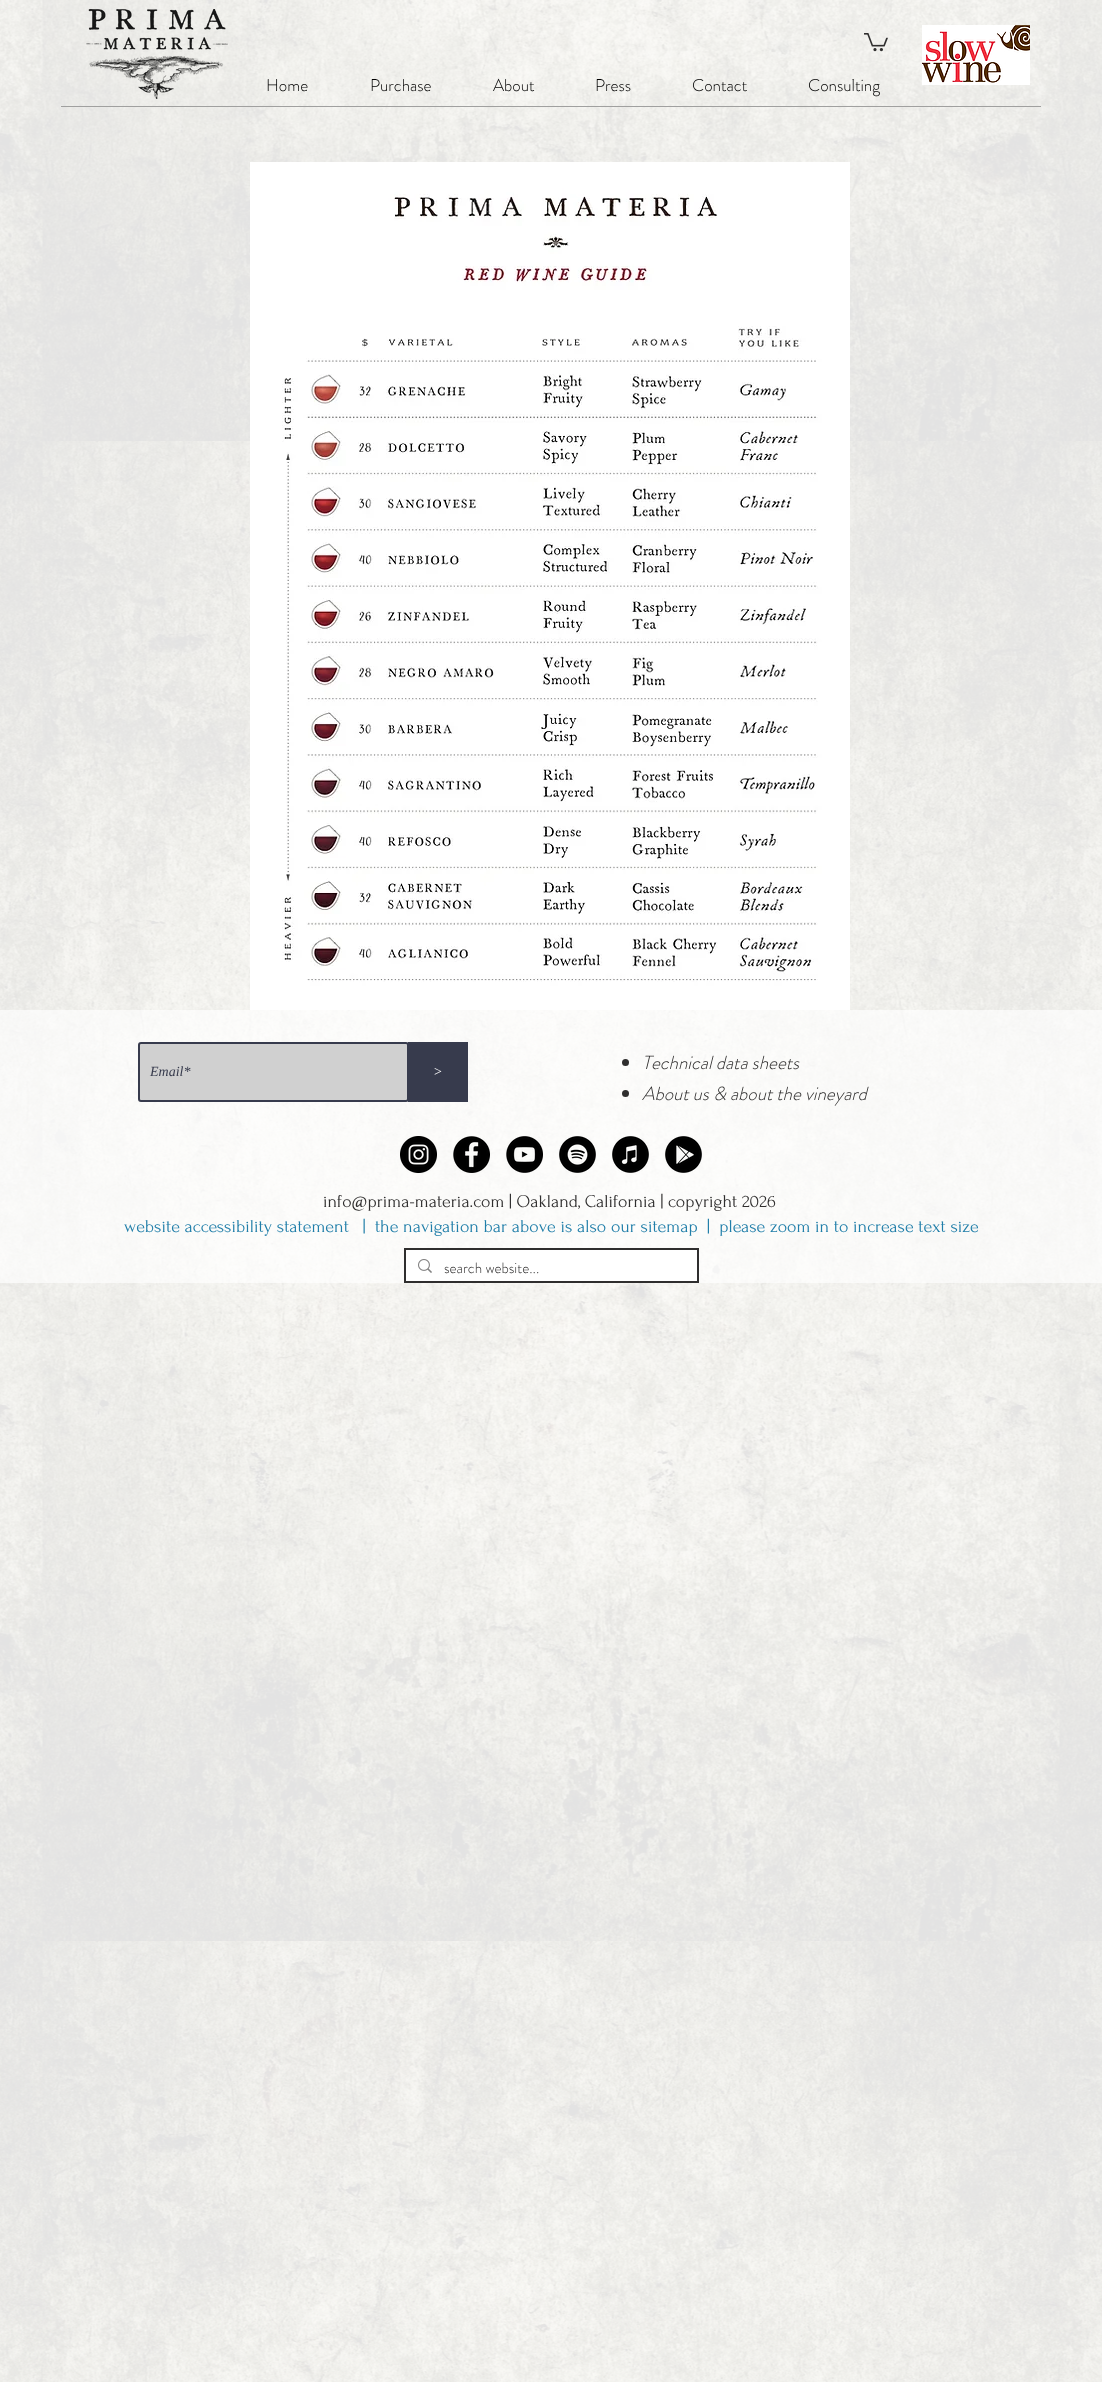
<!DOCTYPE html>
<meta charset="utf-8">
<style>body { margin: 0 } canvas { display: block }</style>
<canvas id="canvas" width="1102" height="2382"></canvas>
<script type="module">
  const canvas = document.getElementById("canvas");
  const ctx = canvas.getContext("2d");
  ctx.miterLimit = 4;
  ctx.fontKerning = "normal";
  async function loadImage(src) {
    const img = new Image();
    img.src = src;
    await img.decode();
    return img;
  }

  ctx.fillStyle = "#ffffff";
  ctx.fillRect(0, 0, 1102, 2382);
  ctx.drawImage(await loadImage("img1.png"), 0, 0, 1102, 2382);
  ctx.drawImage(await loadImage("img2.png"), 86, 9, 142, 90);
  ctx.drawImage(await loadImage("img3.png"), 864, 33, 24, 19);
  ctx.drawImage(await loadImage("img4.png"), 922, 25, 108, 60);
  ctx.font = "300 17px 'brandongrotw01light'";
  ctx.fillStyle = "#000000";
  ctx.fillText("Home", 266, 91);
  ctx.fillText("Purchase", 370, 91);
  ctx.fillText("About", 493, 91);
  ctx.fillText("Press", 595, 91);
  ctx.fillText("Contact", 692, 91);
  ctx.fillText("Consulting", 808, 91);
  ctx.fillStyle = "#a0a09f";
  ctx.fillRect(61, 106, 980, 1);
  ctx.drawImage(await loadImage("img5.png"), 250, 162, 600, 848);
  ctx.fillStyle = "rgba(255, 255, 255, 0.64)";
  ctx.fillRect(0, 1010, 1102, 273);
  ctx.fillStyle = "rgba(204, 204, 204, 0.93)";
  ctx.beginPath();
  ctx.roundRect(139, 1043, 269, 58, 2);
  ctx.fill();
  ctx.strokeStyle = "#373b4d";
  ctx.lineWidth = 2;
  ctx.stroke();
  ctx.font = "italic 14px Liberation Serif";
  ctx.fillStyle = "#373b4d";
  ctx.fillText("Email*", 150, 1076);
  ctx.fillRect(408, 1042, 60, 60);
  ctx.font = "14px Liberation Serif";
  ctx.fillStyle = "#ffffff";
  ctx.fillText(">", 434, 1076);
  ctx.fillStyle = "#2f2e2e";
  ctx.beginPath();
  ctx.arc(625.5, 1062.5, 3.5, 0, Math.PI * 2);
  ctx.fill();
  ctx.font = "italic 300 19px 'brandongrotw01light'";
  ctx.fillText("Technical data sheets", 642, 1069);
  ctx.beginPath();
  ctx.arc(625.5, 1093.5, 3.5, 0, Math.PI * 2);
  ctx.fill();
  ctx.fillText("About us & about the vineyard", 642, 1100);
  ctx.drawImage(await loadImage("img6.png"), 400, 1136, 37, 37);
  ctx.drawImage(await loadImage("img7.png"), 453, 1136, 37, 37);
  ctx.drawImage(await loadImage("img8.png"), 506, 1136, 37, 37);
  ctx.drawImage(await loadImage("img9.png"), 559, 1136, 37, 37);
  ctx.drawImage(await loadImage("img10.png"), 612, 1136, 37, 37);
  ctx.drawImage(await loadImage("img11.png"), 665, 1136, 37, 37);
  ctx.font = "18px Forum";
  ctx.fillText("info@prima-materia.com | Oakland, California | copyright 2026", 323, 1207);
  ctx.fillStyle = "#207ea9";
  ctx.fillText("website accessibility statement   |  the navigation bar above is also our sitemap  |  please zoom in to increase text size", 124, 1232);
  ctx.strokeStyle = "#2f2e2e";
  ctx.strokeRect(405, 1249, 293, 33);
  ctx.fillStyle = "#ffffff";
  ctx.fillRect(406, 1250, 291, 31);
  ctx.drawImage(await loadImage("img12.png"), 418, 1259, 14, 14);
  ctx.font = "300 15px 'brandongrotw01light'";
  ctx.fillStyle = "#2f2e2e";
  ctx.fillText("search website...", 444, 1273);
</script>
